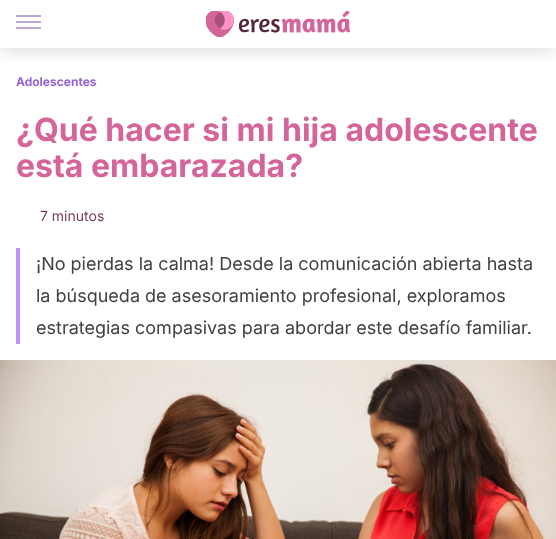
<!DOCTYPE html>
<meta charset="utf-8">
<style>body { margin: 0 } canvas { display: block }</style>
<canvas id="canvas" width="556" height="539"></canvas>
<script type="module">
  const canvas = document.getElementById("canvas");
  const ctx = canvas.getContext("2d");
  ctx.miterLimit = 4;
  ctx.fontKerning = "normal";
  async function loadImage(src) {
    const img = new Image();
    img.src = src;
    await img.decode();
    return img;
  }

  ctx.fillStyle = "#ffffff";
  ctx.fillRect(0, 0, 556, 539);
  ctx.save();
  ctx.beginPath();
  ctx.rect(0, 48, 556, 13);
  ctx.clip();
  ctx.fillStyle = "rgba(0, 0, 0, 0.25)";
  ctx.filter = "blur(12px)";
  ctx.beginPath();
  ctx.rect(0, -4, 556, 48);
  ctx.fill();
  ctx.filter = "none";
  ctx.restore();
  ctx.fillStyle = "#bca8d5";
  ctx.fillRect(16, 15, 25, 2);
  ctx.fillRect(16, 21, 25, 2);
  ctx.fillRect(16, 27, 25, 2);
  ctx.drawImage(await loadImage("img1.png"), 206, 11, 145, 26);
  ctx.font = "bold 12px Inter";
  ctx.fillStyle = "#9564d5";
  ctx.fillText("Adolescentes", 16, 86);
  ctx.font = "bold 32px Inter";
  ctx.fillStyle = "#d4649a";
  ctx.fillText("¿Qué hacer si mi hija adolescente", 16, 141);
  ctx.fillText("está embarazada?", 16, 177);
  ctx.font = "14px Inter";
  ctx.fillStyle = "#7e3b5b";
  ctx.fillText("7 minutos", 40, 221);
  ctx.fillStyle = "#c293ff";
  ctx.fillRect(16, 248, 4, 96);
  ctx.font = "18px Inter";
  ctx.fillStyle = "#414141";
  ctx.fillText("¡No pierdas la calma! Desde la comunicación abierta hasta", 36, 270);
  ctx.fillText("la búsqueda de asesoramiento profesional, exploramos", 36, 302);
  ctx.fillText("estrategias compasivas para abordar este desafío familiar.", 36, 334);
  ctx.drawImage(await loadImage("img2.png"), 0, 360, 556, 179);
</script>
